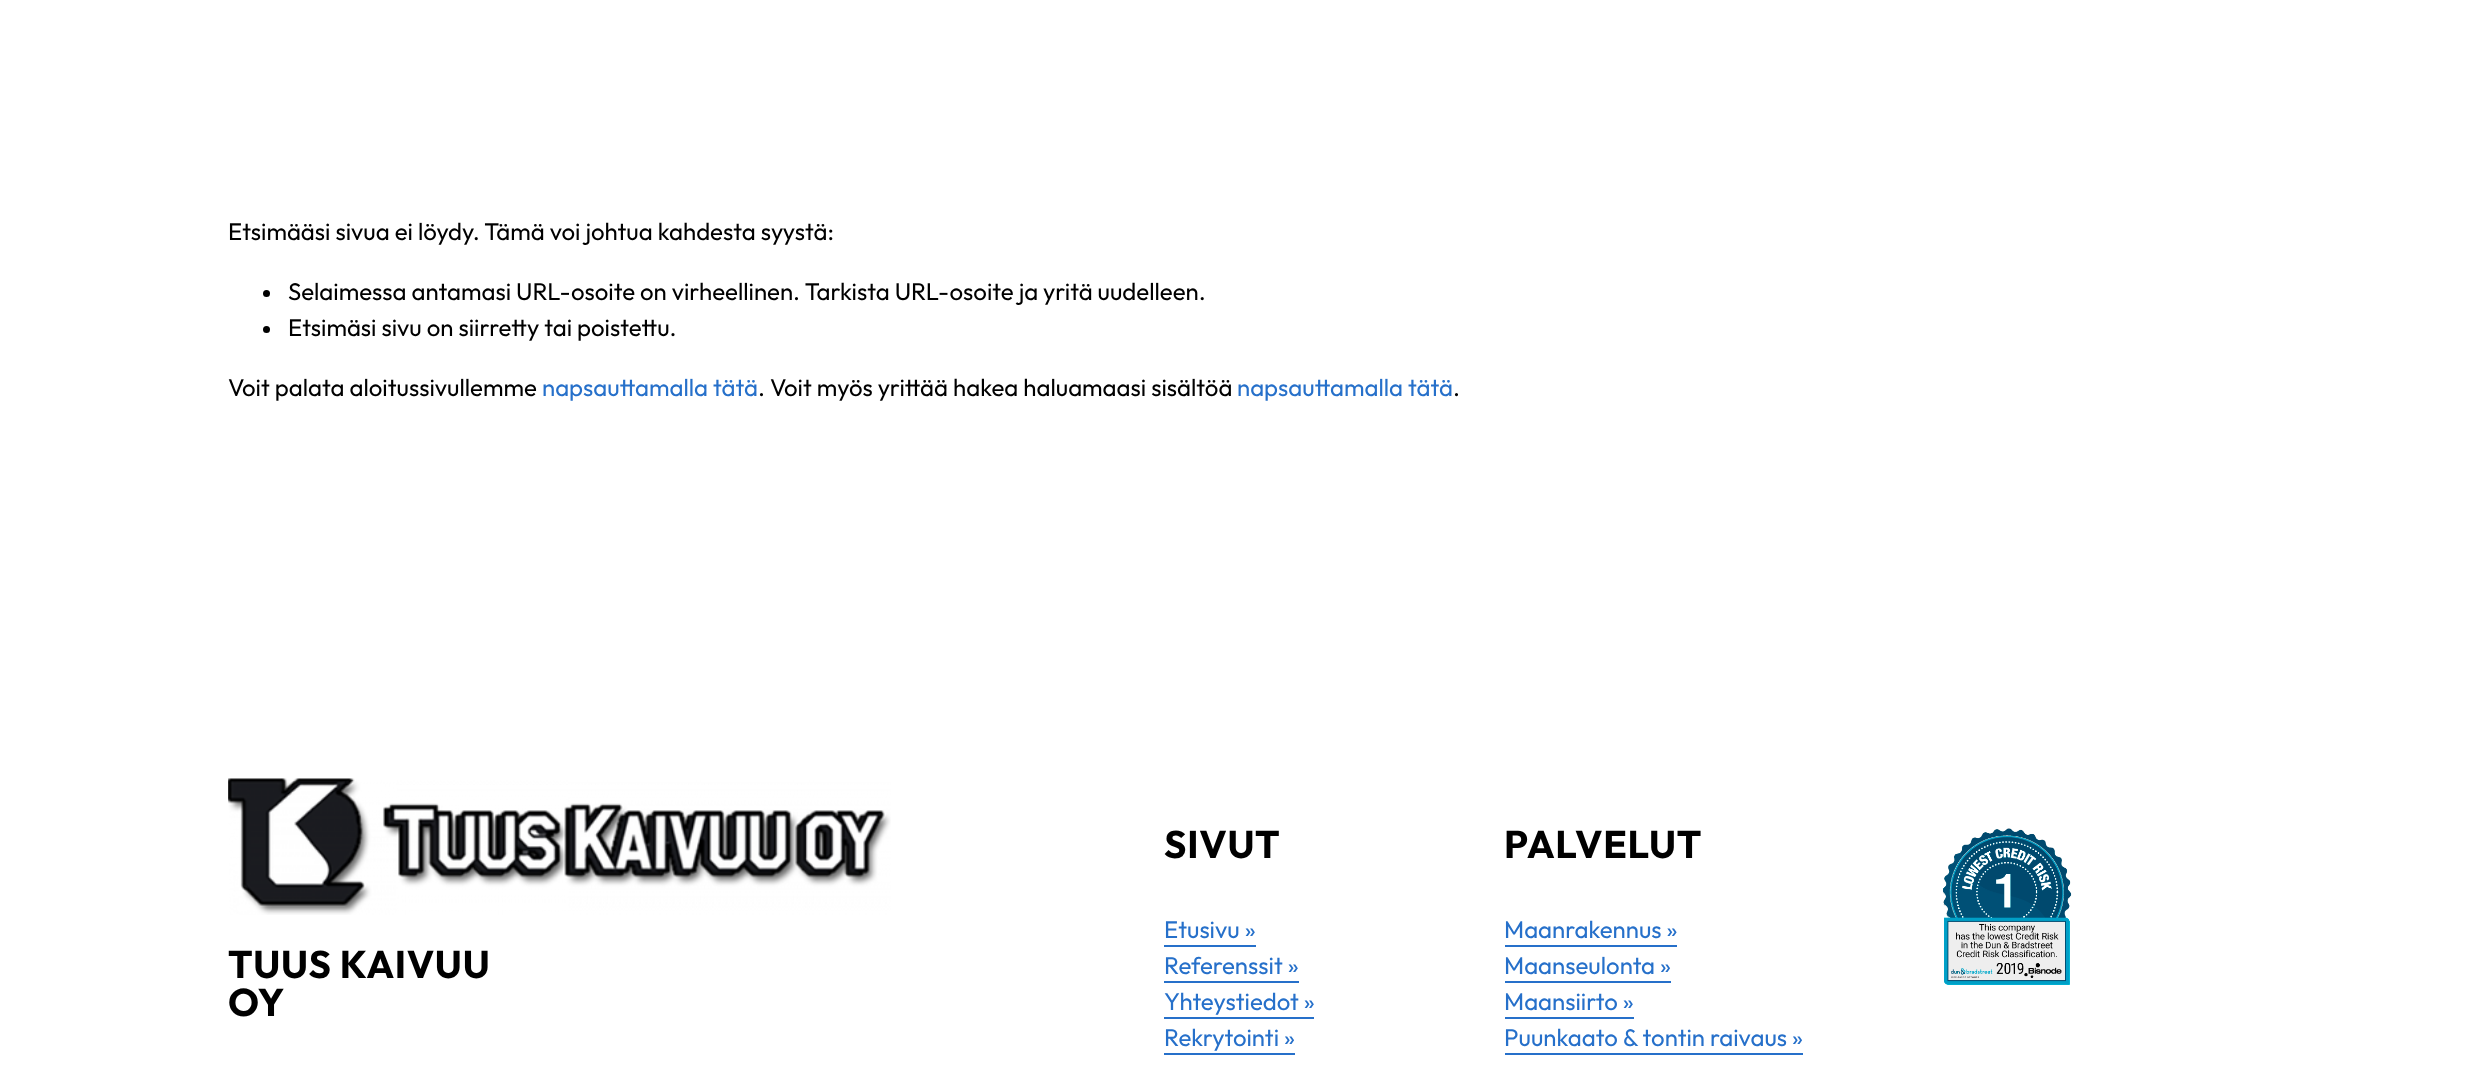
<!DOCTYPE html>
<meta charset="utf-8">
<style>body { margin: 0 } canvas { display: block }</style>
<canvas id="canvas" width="2481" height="1069"></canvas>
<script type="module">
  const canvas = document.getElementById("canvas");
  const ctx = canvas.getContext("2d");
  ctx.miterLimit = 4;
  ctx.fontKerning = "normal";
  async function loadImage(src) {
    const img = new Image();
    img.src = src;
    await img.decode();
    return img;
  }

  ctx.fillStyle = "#ffffff";
  ctx.fillRect(0, 0, 2481, 1069);
  ctx.font = "24px Outfit";
  ctx.fillStyle = "#000000";
  ctx.fillText("Etsimääsi sivua ei löydy. Tämä voi johtua kahdesta syystä:", 228, 240);
  ctx.beginPath();
  ctx.arc(266.5, 293.5, 3.5, 0, Math.PI * 2);
  ctx.fill();
  ctx.fillText("Selaimessa antamasi URL-osoite on virheellinen. Tarkista URL-osoite ja yritä uudelleen.", 288, 300);
  ctx.beginPath();
  ctx.arc(266.5, 329.5, 3.5, 0, Math.PI * 2);
  ctx.fill();
  ctx.fillText("Etsimäsi sivu on siirretty tai poistettu.", 288, 336);
  ctx.fillText("Voit palata aloitussivullemme", 228, 396);
  ctx.fillStyle = "#2670ca";
  ctx.fillText("napsauttamalla tätä", 542, 396);
  ctx.fillStyle = "#000000";
  ctx.fillText(". Voit myös yrittää hakea haluamaasi sisältöä", 758, 396);
  ctx.fillStyle = "#2670ca";
  ctx.fillText("napsauttamalla tätä", 1237, 396);
  ctx.fillStyle = "#000000";
  ctx.fillText(".", 1453, 396);
  ctx.drawImage(await loadImage("img1.png"), 228, 778, 663, 137);
  ctx.letterSpacing = "0.75px";
  ctx.font = "bold 38.5px Outfit";
  ctx.fillText("SIVUT", 1164, 858);
  ctx.fillStyle = "#2670ca";
  ctx.fillRect(1164, 945, 92, 2);
  ctx.letterSpacing = "0px";
  ctx.font = "24px Outfit";
  ctx.fillText("Etusivu »", 1164, 938);
  ctx.fillRect(1164, 981, 135, 2);
  ctx.fillText("Referenssit »", 1164, 974);
  ctx.fillRect(1164, 1017, 150, 2);
  ctx.fillText("Yhteystiedot »", 1164, 1010);
  ctx.fillRect(1164, 1053, 131, 2);
  ctx.fillText("Rekrytointi »", 1164, 1046);
  ctx.letterSpacing = "0.75px";
  ctx.font = "bold 38.5px Outfit";
  ctx.fillStyle = "#000000";
  ctx.fillText("PALVELUT", 1504, 858);
  ctx.fillStyle = "#2670ca";
  ctx.fillRect(1505, 945, 172, 2);
  ctx.letterSpacing = "0px";
  ctx.font = "24px Outfit";
  ctx.fillText("Maanrakennus »", 1504, 938);
  ctx.fillRect(1505, 981, 166, 2);
  ctx.fillText("Maanseulonta »", 1504, 974);
  ctx.fillRect(1505, 1017, 129, 2);
  ctx.fillText("Maansiirto »", 1504, 1010);
  ctx.fillRect(1505, 1053, 298, 2);
  ctx.fillText("Puunkaato & tontin raivaus »", 1504, 1046);
  ctx.drawImage(await loadImage("img2.png"), 1942, 828, 130, 157);
  ctx.letterSpacing = "0.75px";
  ctx.font = "bold 38.5px Outfit";
  ctx.fillStyle = "#000000";
  ctx.fillText("TUUS KAIVUU", 228, 978);
  ctx.fillText("OY", 228, 1016);
</script>
